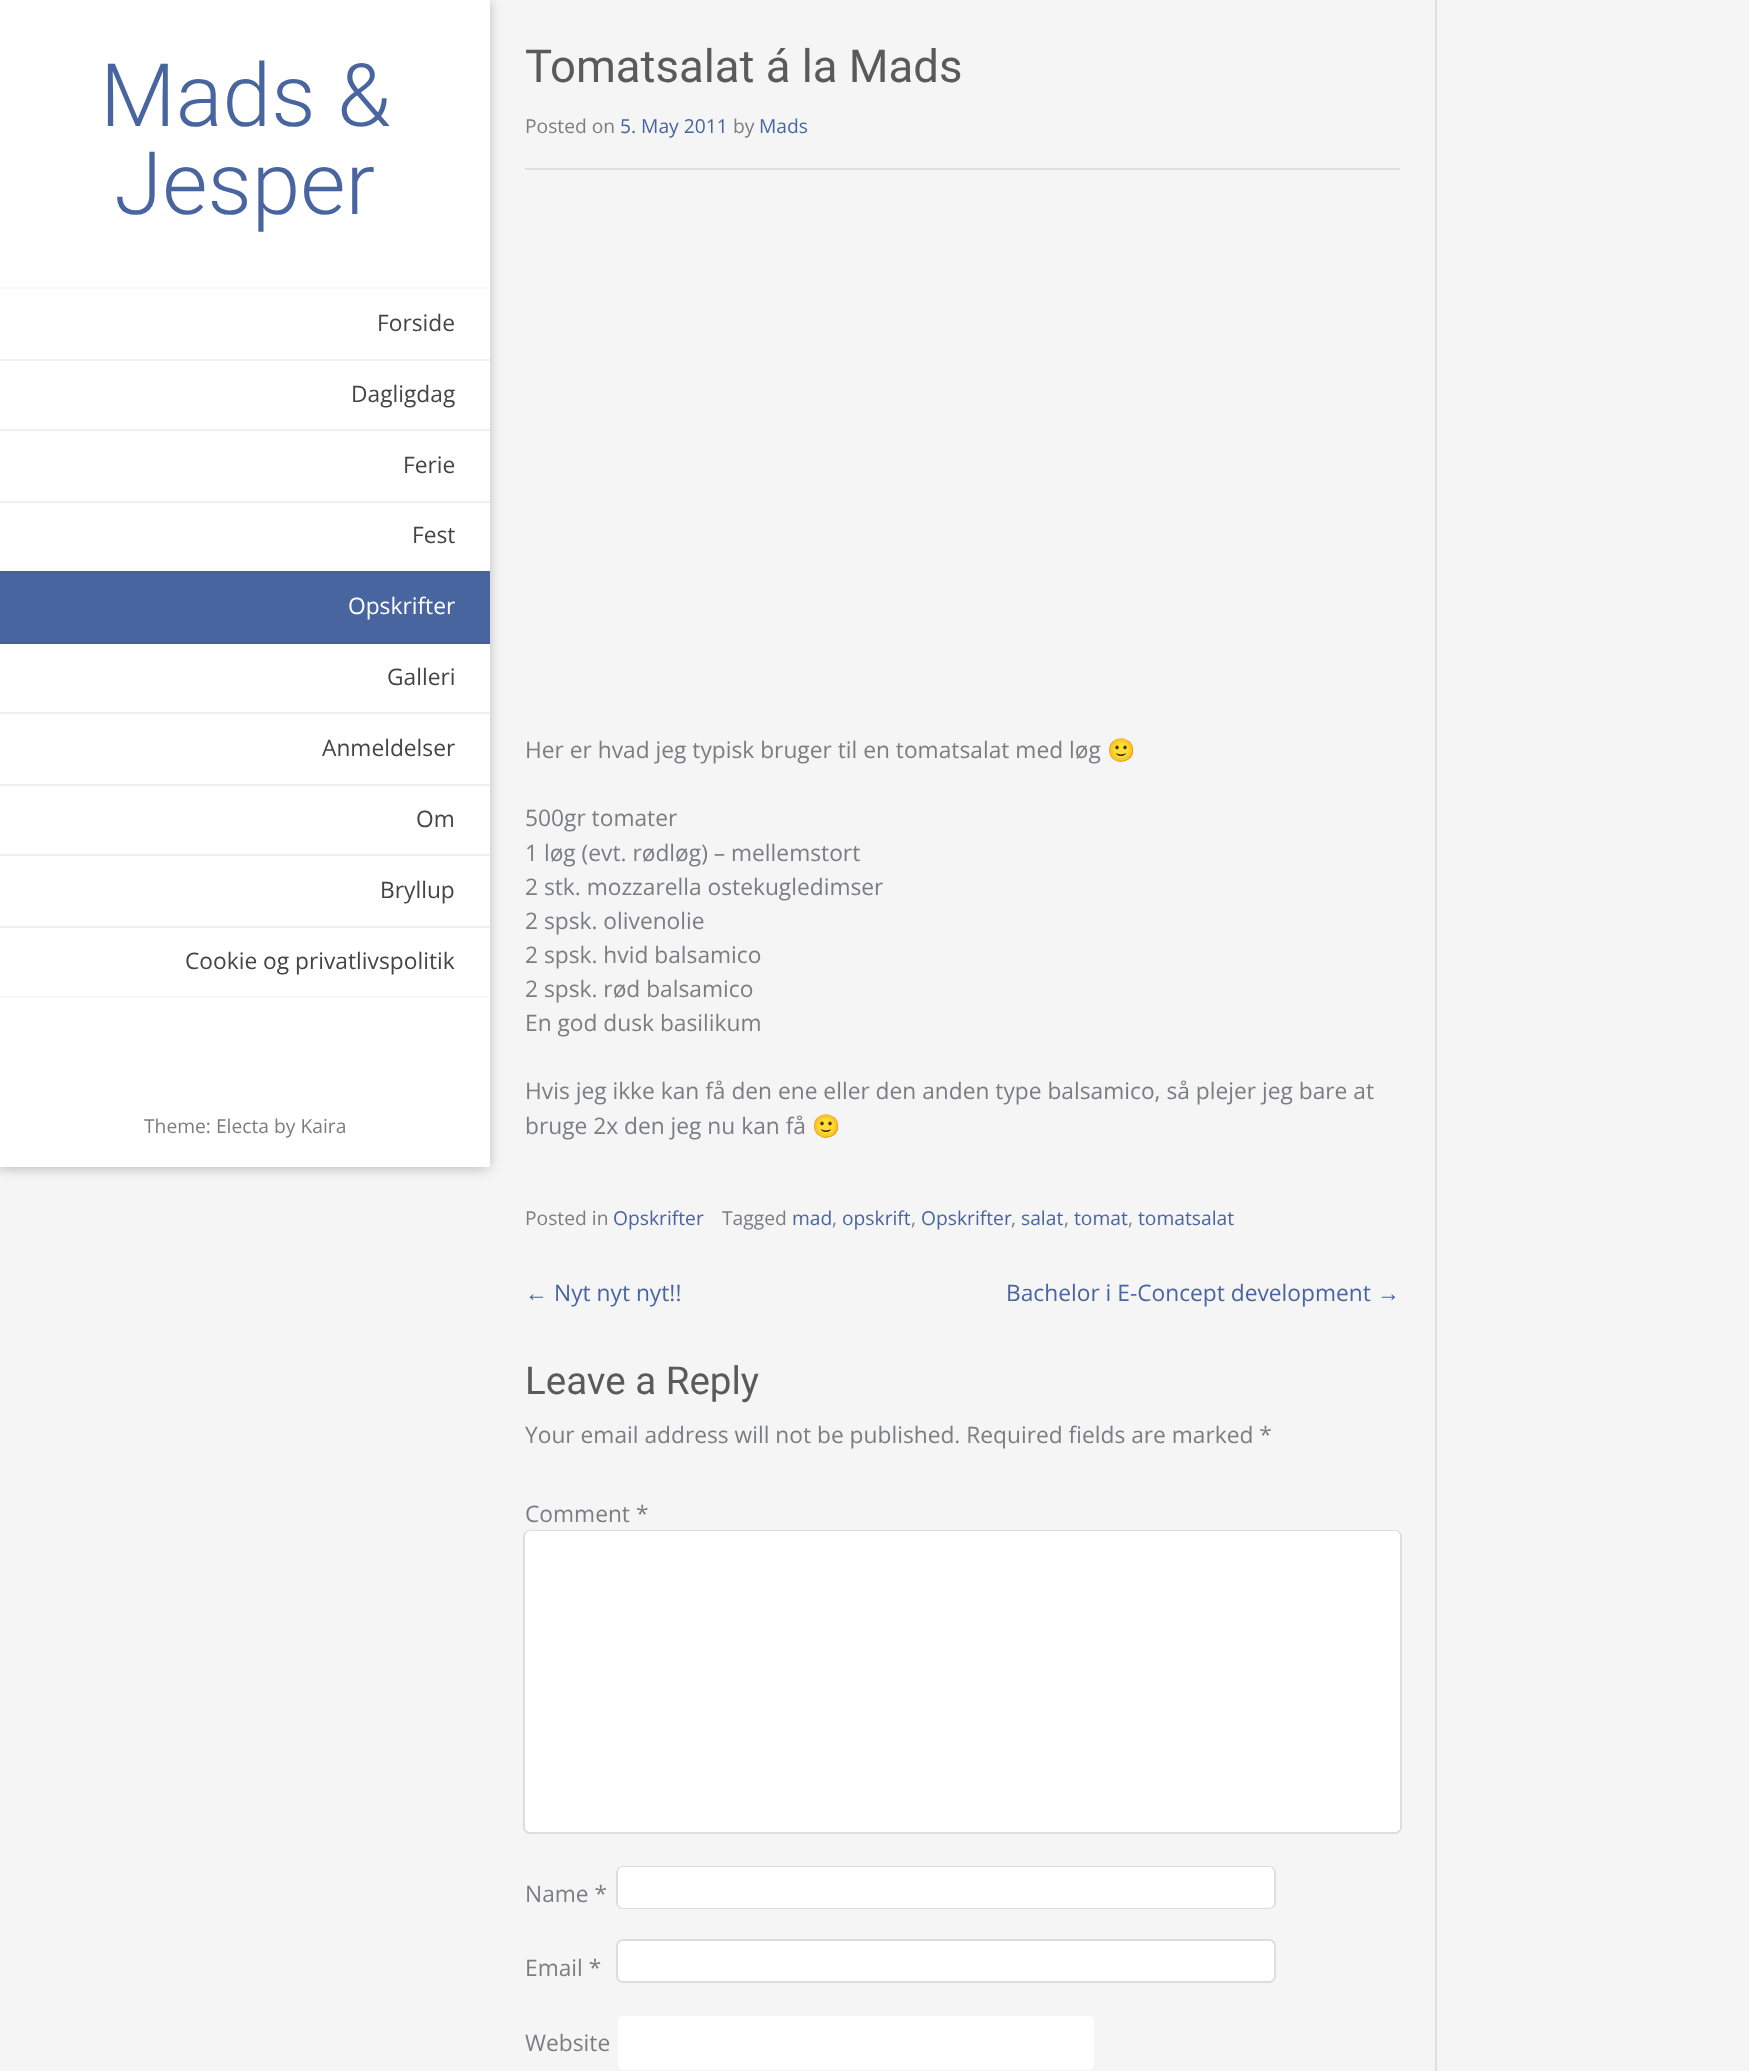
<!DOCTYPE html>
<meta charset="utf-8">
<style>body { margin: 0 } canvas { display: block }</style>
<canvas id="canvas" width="1749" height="2071"></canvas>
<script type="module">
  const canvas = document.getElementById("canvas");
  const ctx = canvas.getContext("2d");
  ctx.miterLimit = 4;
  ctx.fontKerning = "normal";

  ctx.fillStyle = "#f5f5f5";
  ctx.fillRect(0, 0, 1749, 2071);
  ctx.fillStyle = "#ffffff";
  ctx.fillRect(0, 0, 490, 1167);
  ctx.save();
  ctx.beginPath();
  ctx.moveTo(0, 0);
  ctx.lineTo(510, 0);
  ctx.lineTo(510, 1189);
  ctx.lineTo(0, 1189);
  ctx.closePath();
  ctx.moveTo(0, 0);
  ctx.lineTo(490, 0);
  ctx.lineTo(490, 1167);
  ctx.lineTo(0, 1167);
  ctx.closePath();
  ctx.clip("evenodd");
  ctx.fillStyle = "rgba(0, 0, 0, 0.3)";
  ctx.filter = "blur(7px)";
  ctx.beginPath();
  ctx.rect(-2, 0, 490, 1167);
  ctx.fill();
  ctx.filter = "none";
  ctx.restore();
  ctx.font = "300 87.5px Roboto";
  ctx.fillStyle = "#4965a0";
  ctx.fillText("Mads &", 100, 126);
  ctx.fillText("Jesper", 114, 214);
  ctx.fillStyle = "#f7f7f7";
  ctx.fillRect(0, 287, 490, 2);
  ctx.font = "22.75px Open Sans";
  ctx.fillStyle = "#444444";
  ctx.fillText("Forside", 377, 331);
  ctx.fillStyle = "#f0f0f0";
  ctx.fillRect(0, 359, 490, 2);
  ctx.fillStyle = "#444444";
  ctx.fillText("Dagligdag", 351, 402);
  ctx.fillStyle = "#f0f0f0";
  ctx.fillRect(0, 429, 490, 2);
  ctx.fillStyle = "#444444";
  ctx.fillText("Ferie", 403, 473);
  ctx.fillStyle = "#f0f0f0";
  ctx.fillRect(0, 501, 490, 2);
  ctx.fillStyle = "#444444";
  ctx.fillText("Fest", 412, 543);
  ctx.fillStyle = "#4965a0";
  ctx.fillRect(0, 573, 490, 69);
  ctx.fillStyle = "#47629b";
  ctx.fillRect(0, 571, 490, 2);
  ctx.fillStyle = "#ffffff";
  ctx.fillText("Opskrifter", 348, 614);
  ctx.fillStyle = "#455f96";
  ctx.fillRect(0, 642, 490, 2);
  ctx.fillStyle = "#444444";
  ctx.fillText("Galleri", 387, 685);
  ctx.fillStyle = "#f0f0f0";
  ctx.fillRect(0, 712, 490, 2);
  ctx.fillStyle = "#444444";
  ctx.fillText("Anmeldelser", 322, 756);
  ctx.fillStyle = "#f0f0f0";
  ctx.fillRect(0, 784, 490, 2);
  ctx.fillStyle = "#444444";
  ctx.fillText("Om", 416, 827);
  ctx.fillStyle = "#f0f0f0";
  ctx.fillRect(0, 854, 490, 2);
  ctx.fillStyle = "#444444";
  ctx.fillText("Bryllup", 380, 898);
  ctx.fillStyle = "#f0f0f0";
  ctx.fillRect(0, 926, 490, 2);
  ctx.fillStyle = "#f7f7f7";
  ctx.fillRect(0, 996, 490, 2);
  ctx.fillStyle = "#444444";
  ctx.fillText("Cookie og privatlivspolitik", 185, 969);
  ctx.font = "19.25px Open Sans";
  ctx.fillStyle = "#7b7d80";
  ctx.fillText("Theme: Electa by Kaira", 144, 1133);
  ctx.fillStyle = "#dfdfdf";
  ctx.beginPath();
  ctx.moveTo(492, 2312);
  ctx.lineTo(1437, 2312);
  ctx.lineTo(1437, 0);
  ctx.lineTo(1435, 0);
  ctx.lineTo(1435, 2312);
  ctx.closePath();
  ctx.fill();
  ctx.fillRect(525, 168, 875, 2);
  ctx.font = "45.5px Roboto";
  ctx.fillStyle = "#5a5a5a";
  ctx.fillText("Tomatsalat á la Mads", 525, 82);
  ctx.font = "19.25px Open Sans";
  ctx.fillStyle = "#7b7d80";
  ctx.fillText("Posted on", 525, 133);
  ctx.fillStyle = "#4965a0";
  ctx.fillText("5. May 2011", 620, 133);
  ctx.fillStyle = "#7b7d80";
  ctx.fillText("by", 733, 133);
  ctx.fillStyle = "#4965a0";
  ctx.fillText("Mads", 759, 133);
  ctx.font = "22.75px Open Sans";
  ctx.fillStyle = "#7b7d80";
  ctx.fillText("Her er hvad jeg typisk bruger til en tomatsalat med løg", 525, 758);
  ctx.font = "22.75px Noto Color Emoji";
  ctx.fillText("🙂", 1107, 758);
  ctx.font = "22.75px Open Sans";
  ctx.fillText("500gr tomater", 525, 826);
  ctx.fillText("1 løg (evt. rødløg) – mellemstort", 525, 861);
  ctx.fillText("2 stk. mozzarella ostekugledimser", 525, 895);
  ctx.fillText("2 spsk. olivenolie", 525, 929);
  ctx.fillText("2 spsk. hvid balsamico", 525, 963);
  ctx.fillText("2 spsk. rød balsamico", 525, 997);
  ctx.fillText("En god dusk basilikum", 525, 1031);
  ctx.fillText("Hvis jeg ikke kan få den ene eller den anden type balsamico, så plejer jeg bare at", 525, 1099);
  ctx.fillText("bruge 2x den jeg nu kan få", 525, 1134);
  ctx.font = "22.75px Noto Color Emoji";
  ctx.fillText("🙂", 812, 1134);
  ctx.font = "19.25px Open Sans";
  ctx.fillText("Posted in", 525, 1225);
  ctx.fillStyle = "#4965a0";
  ctx.fillText("Opskrifter", 613, 1225);
  ctx.fillStyle = "#7b7d80";
  ctx.fillText("Tagged", 722, 1225);
  ctx.fillStyle = "#4965a0";
  ctx.fillText("mad", 792, 1225);
  ctx.fillStyle = "#7b7d80";
  ctx.fillText(",", 832, 1225);
  ctx.fillStyle = "#4965a0";
  ctx.fillText("opskrift", 842, 1225);
  ctx.fillStyle = "#7b7d80";
  ctx.fillText(",", 911, 1225);
  ctx.fillStyle = "#4965a0";
  ctx.fillText("Opskrifter", 921, 1225);
  ctx.fillStyle = "#7b7d80";
  ctx.fillText(",", 1011, 1225);
  ctx.fillStyle = "#4965a0";
  ctx.fillText("salat", 1021, 1225);
  ctx.fillStyle = "#7b7d80";
  ctx.fillText(",", 1064, 1225);
  ctx.fillStyle = "#4965a0";
  ctx.fillText("tomat", 1074, 1225);
  ctx.fillStyle = "#7b7d80";
  ctx.fillText(",", 1128, 1225);
  ctx.fillStyle = "#4965a0";
  ctx.fillText("tomatsalat", 1138, 1225);
  ctx.font = "22.75px Liberation Sans";
  ctx.fillText("←", 525, 1301);
  ctx.font = "22.75px Open Sans";
  ctx.fillText("Nyt nyt nyt!!", 554, 1301);
  ctx.fillText("Bachelor i E-Concept development", 1006, 1301);
  ctx.font = "22.75px Liberation Sans";
  ctx.fillText("→", 1377, 1301);
  ctx.font = "38.5px Roboto";
  ctx.fillStyle = "#5a5a5a";
  ctx.fillText("Leave a Reply", 525, 1394);
  ctx.font = "22.75px Open Sans";
  ctx.fillStyle = "#7b7d80";
  ctx.fillText("Your email address will not be published. Required fields are marked *", 525, 1443);
  ctx.fillText("Comment *", 525, 1522);
  ctx.beginPath();
  ctx.roundRect(524, 1531, 877, 302, 6);
  ctx.strokeStyle = "#dddddd";
  ctx.lineWidth = 2;
  ctx.stroke();
  ctx.fillStyle = "#ffffff";
  ctx.beginPath();
  ctx.roundRect(525, 1531, 875, 301, 5);
  ctx.fill();
  ctx.fillStyle = "#7b7d80";
  ctx.fillText("Name *", 525, 1902);
  ctx.beginPath();
  ctx.roundRect(617, 1867, 658, 41, 6);
  ctx.stroke();
  ctx.fillStyle = "#ffffff";
  ctx.beginPath();
  ctx.roundRect(618, 1867, 656, 41, 5);
  ctx.fill();
  ctx.fillStyle = "#7b7d80";
  ctx.fillText("Email *", 525, 1976);
  ctx.beginPath();
  ctx.roundRect(617, 1940, 658, 42, 6);
  ctx.stroke();
  ctx.fillStyle = "#ffffff";
  ctx.beginPath();
  ctx.roundRect(618, 1941, 656, 40, 5);
  ctx.fill();
  ctx.fillStyle = "#7b7d80";
  ctx.fillText("Website", 525, 2051);
  ctx.fillStyle = "#ffffff";
  ctx.beginPath();
  ctx.roundRect(618, 2016, 476, 54, 5);
  ctx.fill();
</script>
